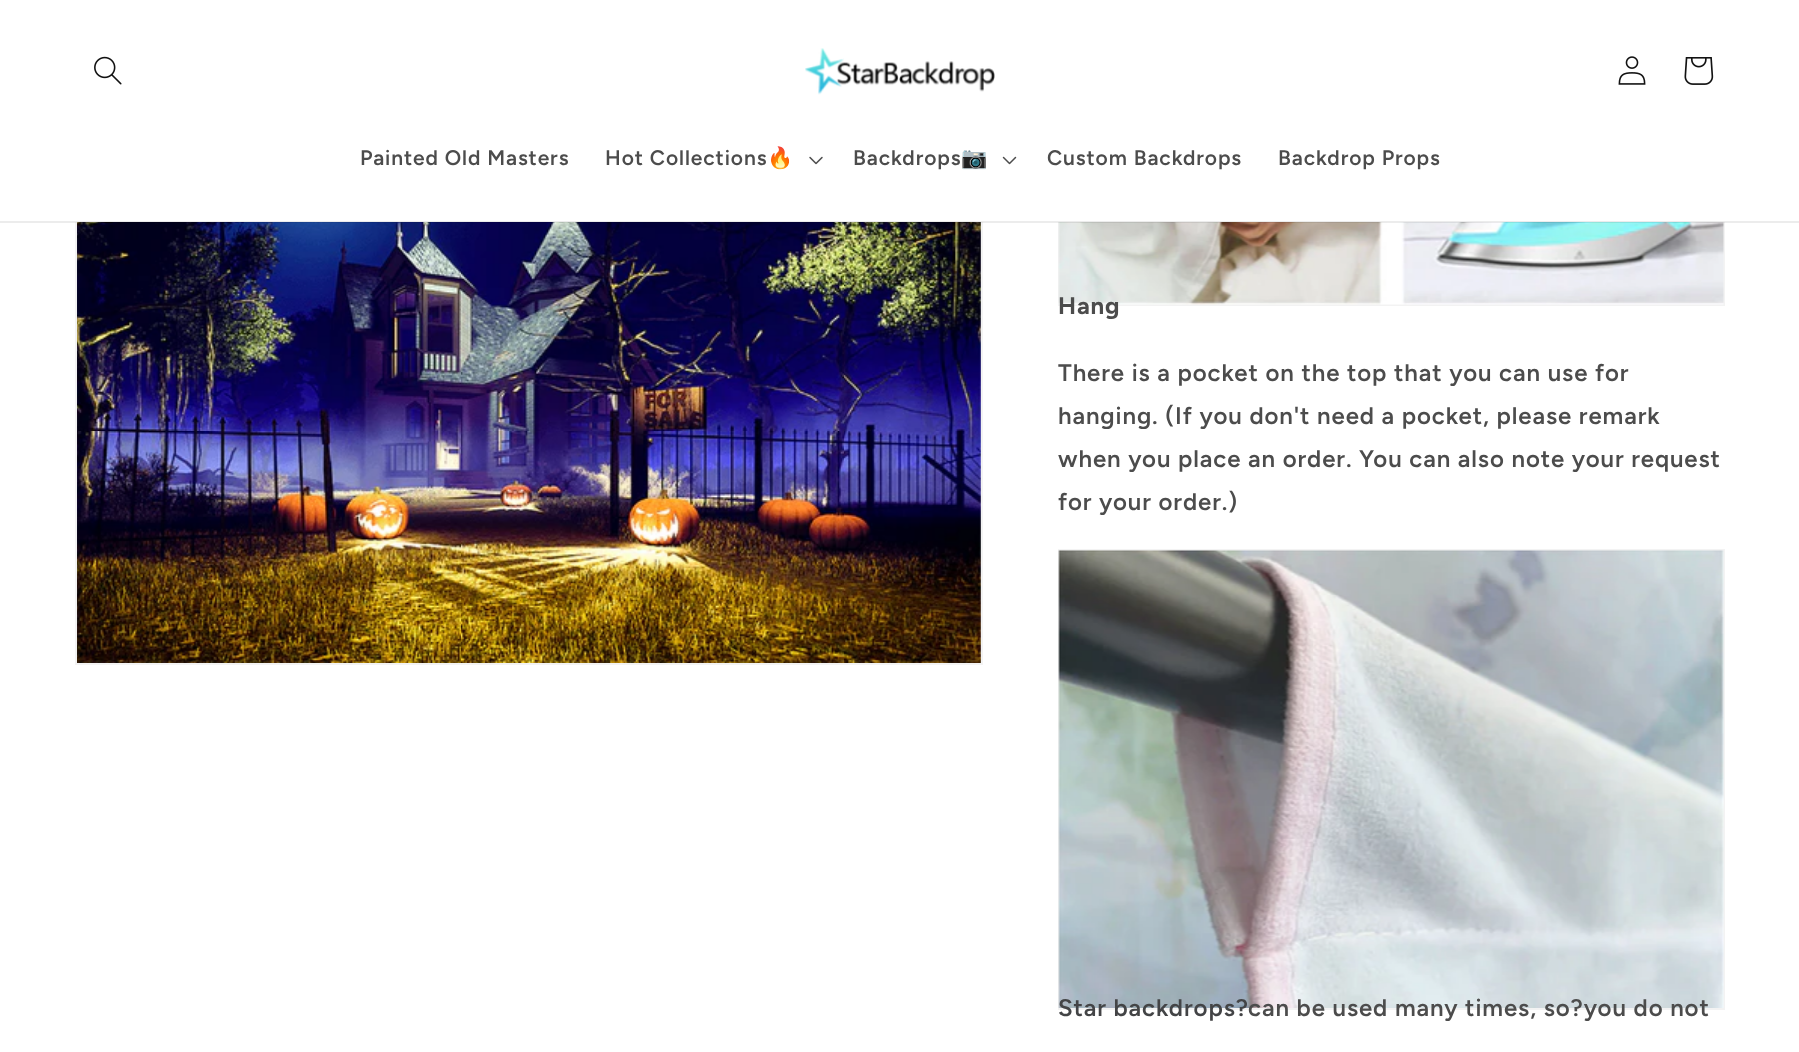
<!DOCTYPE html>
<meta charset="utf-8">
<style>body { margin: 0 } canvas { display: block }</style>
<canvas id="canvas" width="1799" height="1052"></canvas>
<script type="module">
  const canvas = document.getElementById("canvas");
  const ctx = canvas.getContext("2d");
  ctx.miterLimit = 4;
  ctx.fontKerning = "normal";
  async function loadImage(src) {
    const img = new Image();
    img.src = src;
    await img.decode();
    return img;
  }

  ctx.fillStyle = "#ffffff";
  ctx.fillRect(0, 0, 1799, 1052);
  ctx.strokeStyle = "#f3f3f3";
  ctx.lineWidth = 2;
  ctx.strokeRect(76, 46, 906, 618);
  ctx.strokeRect(1059, -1, 665, 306);
  ctx.fillRect(75, 0, 1650, 222);
  ctx.drawImage(await loadImage("img7.png"), 77, 222, 904, 441);
  ctx.drawImage(await loadImage("img8.png"), 1058, 222, 666, 83);
  ctx.fillStyle = "rgba(18, 18, 18, 0.08)";
  ctx.fillRect(0, 221, 1799, 2);
  ctx.drawImage(await loadImage("img1.png"), 94, 56, 28, 29);
  ctx.drawImage(await loadImage("img2.png"), 805, 48, 190, 47);
  ctx.drawImage(await loadImage("img3.png"), 1618, 56, 28, 29);
  ctx.drawImage(await loadImage("img4.png"), 1684, 57, 30, 28);
  ctx.letterSpacing = "0.9px";
  ctx.font = "600 21px Figtree";
  ctx.fillStyle = "#4c4c4c";
  ctx.fillText("Painted Old Masters", 360, 165);
  ctx.fillText("Hot Collections", 605, 165);
  ctx.font = "bold 21px Noto Color Emoji";
  ctx.fillText("🔥", 767, 165);
  ctx.drawImage(await loadImage("img5.png"), 809, 156, 14, 9);
  ctx.font = "600 21px Figtree";
  ctx.fillText("Backdrops", 853, 165);
  ctx.font = "bold 21px Noto Color Emoji";
  ctx.fillText("📷", 961, 165);
  ctx.drawImage(await loadImage("img6.png"), 1002, 156, 15, 9);
  ctx.font = "600 21px Figtree";
  ctx.fillText("Custom Backdrops", 1047, 165);
  ctx.fillText("Backdrop Props", 1278, 165);
  ctx.font = "bold 24px Figtree";
  ctx.fillText("Hang", 1058, 314);
  ctx.font = "600 24px Figtree";
  ctx.fillText("There is a pocket on the top that you can use for", 1058, 381);
  ctx.fillText("hanging. (If you don't need a pocket, please remark", 1058, 424);
  ctx.fillText("when you place an order. You can also note your request", 1058, 467);
  ctx.fillText("for your order.)", 1058, 510);
  ctx.strokeRect(1059, 550, 665, 459);
  ctx.drawImage(await loadImage("img9.png"), 1058, 550, 666, 458);
  ctx.fillStyle = "#434446";
  ctx.fillText("Star backdrops?", 1058, 1016);
  ctx.fillStyle = "#4c4c4c";
  ctx.fillText("can be used many times, so?you do not", 1248, 1016);
</script>
